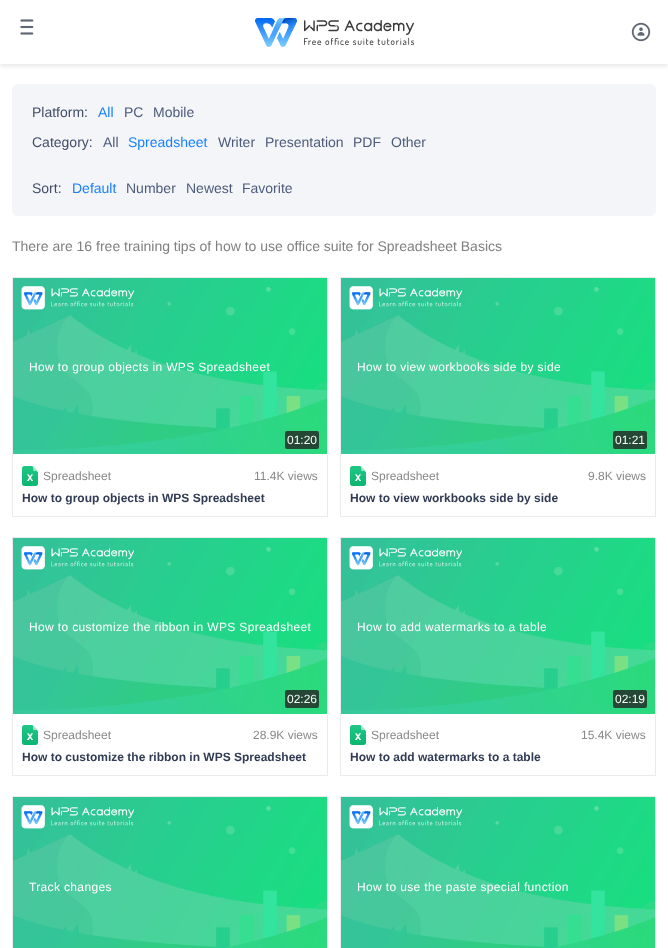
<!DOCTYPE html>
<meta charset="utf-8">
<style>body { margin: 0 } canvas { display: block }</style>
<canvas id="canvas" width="668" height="948"></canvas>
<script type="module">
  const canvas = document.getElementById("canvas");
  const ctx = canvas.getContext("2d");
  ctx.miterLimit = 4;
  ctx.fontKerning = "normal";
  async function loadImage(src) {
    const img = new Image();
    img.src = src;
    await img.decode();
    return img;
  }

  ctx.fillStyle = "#ffffff";
  ctx.fillRect(0, 0, 668, 948);
  ctx.save();
  ctx.beginPath();
  ctx.rect(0, 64, 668, 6);
  ctx.clip();
  ctx.fillStyle = "#e5e5e5";
  ctx.filter = "blur(2px)";
  ctx.beginPath();
  ctx.rect(0, 2, 668, 64);
  ctx.fill();
  ctx.filter = "none";
  ctx.restore();
  ctx.drawImage(await loadImage("img1.png"), 20, 19, 14, 16);
  ctx.drawImage(await loadImage("img2.png"), 255, 18, 159, 29);
  ctx.drawImage(await loadImage("img3.png"), 631, 22, 20, 20);
  ctx.fillStyle = "#f3f5f9";
  ctx.beginPath();
  ctx.roundRect(12, 84, 644, 132, 6);
  ctx.fill();
  ctx.font = "14px Liberation Sans";
  ctx.fillStyle = "#414e69";
  ctx.fillText("Platform:", 32, 117);
  ctx.fillStyle = "#1880ff";
  ctx.fillText("All", 98, 117);
  ctx.fillStyle = "#4d5b7a";
  ctx.fillText("PC", 124, 117);
  ctx.fillText("Mobile", 153, 117);
  ctx.fillStyle = "#414e69";
  ctx.fillText("Category:", 32, 147);
  ctx.fillStyle = "#4d5b7a";
  ctx.fillText("All", 103, 147);
  ctx.fillStyle = "#1880ff";
  ctx.fillText("Spreadsheet", 128, 147);
  ctx.fillStyle = "#4d5b7a";
  ctx.fillText("Writer", 218, 147);
  ctx.fillText("Presentation", 265, 147);
  ctx.fillText("PDF", 353, 147);
  ctx.fillText("Other", 391, 147);
  ctx.fillStyle = "#414e69";
  ctx.fillText("Sort:", 32, 193);
  ctx.fillStyle = "#1880ff";
  ctx.fillText("Default", 72, 193);
  ctx.fillStyle = "#4d5b7a";
  ctx.fillText("Number", 126, 193);
  ctx.fillText("Newest", 186, 193);
  ctx.fillText("Favorite", 242, 193);
  ctx.fillStyle = "#808080";
  ctx.fillText("There are 16 free training tips of how to use office suite for Spreadsheet Basics", 12, 251);
  ctx.strokeStyle = "#ebebeb";
  ctx.strokeRect(12.5, 277.5, 315, 239);
  ctx.drawImage(await loadImage("img4.png"), 13, 278, 314, 176);
  ctx.letterSpacing = "0.35px";
  ctx.font = "12px Liberation Sans";
  ctx.fillStyle = "#ffffff";
  ctx.fillText("How to group objects in WPS Spreadsheet", 29, 371);
  ctx.fillStyle = "rgba(35, 35, 35, 0.8)";
  ctx.beginPath();
  ctx.roundRect(285, 431, 34, 18, 2);
  ctx.fill();
  ctx.letterSpacing = "0px";
  ctx.fillStyle = "#ffffff";
  ctx.fillText("01:20", 287, 444);
  ctx.drawImage(await loadImage("img5.png"), 22, 466, 16, 20);
  ctx.fillStyle = "#888888";
  ctx.fillText("Spreadsheet", 43, 480);
  ctx.fillText("11.4K views", 254, 480);
  ctx.font = "bold 12px Liberation Sans";
  ctx.fillStyle = "#313c54";
  ctx.fillText("How to group objects in WPS Spreadsheet", 22, 502);
  ctx.strokeRect(340.5, 277.5, 315, 239);
  ctx.drawImage(await loadImage("img4.png"), 341, 278, 314, 176);
  ctx.letterSpacing = "0.35px";
  ctx.font = "12px Liberation Sans";
  ctx.fillStyle = "#ffffff";
  ctx.fillText("How to view workbooks side by side", 357, 371);
  ctx.fillStyle = "rgba(35, 35, 35, 0.8)";
  ctx.beginPath();
  ctx.roundRect(613, 431, 34, 18, 2);
  ctx.fill();
  ctx.letterSpacing = "0px";
  ctx.fillStyle = "#ffffff";
  ctx.fillText("01:21", 615, 444);
  ctx.drawImage(await loadImage("img5.png"), 350, 466, 16, 20);
  ctx.fillStyle = "#888888";
  ctx.fillText("Spreadsheet", 371, 480);
  ctx.fillText("9.8K views", 588, 480);
  ctx.font = "bold 12px Liberation Sans";
  ctx.fillStyle = "#313c54";
  ctx.fillText("How to view workbooks side by side", 350, 502);
  ctx.strokeRect(12.5, 537.5, 315, 238);
  ctx.drawImage(await loadImage("img4.png"), 13, 538, 314, 176);
  ctx.letterSpacing = "0.35px";
  ctx.font = "12px Liberation Sans";
  ctx.fillStyle = "#ffffff";
  ctx.fillText("How to customize the ribbon in WPS Spreadsheet", 29, 631);
  ctx.fillStyle = "rgba(35, 35, 35, 0.8)";
  ctx.beginPath();
  ctx.roundRect(285, 690, 34, 18, 2);
  ctx.fill();
  ctx.letterSpacing = "0px";
  ctx.fillStyle = "#ffffff";
  ctx.fillText("02:26", 287, 703);
  ctx.drawImage(await loadImage("img5.png"), 22, 725, 16, 20);
  ctx.fillStyle = "#888888";
  ctx.fillText("Spreadsheet", 43, 739);
  ctx.fillText("28.9K views", 253, 739);
  ctx.font = "bold 12px Liberation Sans";
  ctx.fillStyle = "#313c54";
  ctx.fillText("How to customize the ribbon in WPS Spreadsheet", 22, 761);
  ctx.strokeRect(340.5, 537.5, 315, 238);
  ctx.drawImage(await loadImage("img4.png"), 341, 538, 314, 176);
  ctx.letterSpacing = "0.35px";
  ctx.font = "12px Liberation Sans";
  ctx.fillStyle = "#ffffff";
  ctx.fillText("How to add watermarks to a table", 357, 631);
  ctx.fillStyle = "rgba(35, 35, 35, 0.8)";
  ctx.beginPath();
  ctx.roundRect(613, 690, 34, 18, 2);
  ctx.fill();
  ctx.letterSpacing = "0px";
  ctx.fillStyle = "#ffffff";
  ctx.fillText("02:19", 615, 703);
  ctx.drawImage(await loadImage("img5.png"), 350, 725, 16, 20);
  ctx.fillStyle = "#888888";
  ctx.fillText("Spreadsheet", 371, 739);
  ctx.fillText("15.4K views", 581, 739);
  ctx.font = "bold 12px Liberation Sans";
  ctx.fillStyle = "#313c54";
  ctx.fillText("How to add watermarks to a table", 350, 761);
  ctx.strokeRect(12.5, 796.5, 315, 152);
  ctx.drawImage(await loadImage("img6.png"), 13, 797, 314, 151);
  ctx.letterSpacing = "0.35px";
  ctx.font = "12px Liberation Sans";
  ctx.fillStyle = "#ffffff";
  ctx.fillText("Track changes", 29, 891);
  ctx.strokeRect(340.5, 796.5, 315, 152);
  ctx.drawImage(await loadImage("img6.png"), 341, 797, 314, 151);
  ctx.fillText("How to use the paste special function", 357, 891);
</script>
